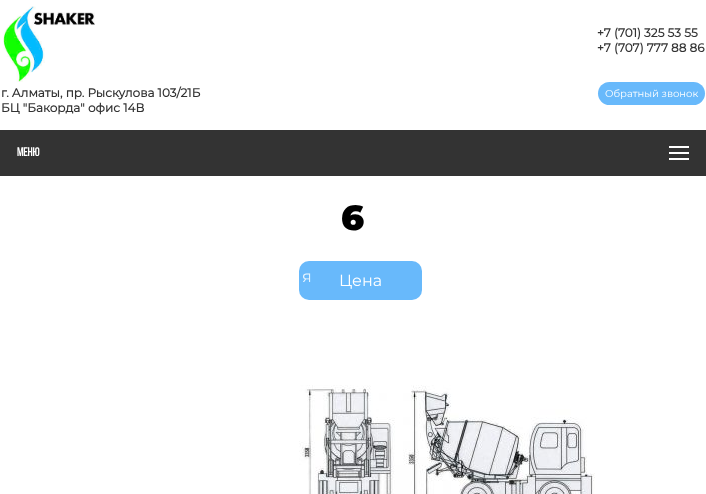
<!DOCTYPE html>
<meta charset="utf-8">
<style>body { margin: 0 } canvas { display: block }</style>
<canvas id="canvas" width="706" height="494"></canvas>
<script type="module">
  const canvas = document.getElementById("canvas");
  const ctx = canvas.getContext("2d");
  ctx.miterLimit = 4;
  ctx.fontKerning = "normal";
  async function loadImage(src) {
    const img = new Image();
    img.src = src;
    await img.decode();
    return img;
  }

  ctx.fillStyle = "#ffffff";
  ctx.fillRect(0, 0, 706, 494);
  ctx.drawImage(await loadImage("img1.png"), 3, 6, 92, 76);
  ctx.font = "bold 12px Montserrat";
  ctx.fillStyle = "#333333";
  ctx.fillText("+7 (701) 325 53 55", 597, 37);
  ctx.fillText("+7 (707) 777 88 86", 597, 52);
  ctx.fillText("г. Алматы, пр. Рыскулова 103/21Б", 1, 97);
  ctx.fillText("БЦ \"Бакорда\" офис 14В", 1, 112);
  ctx.fillStyle = "#68b9fb";
  ctx.beginPath();
  ctx.roundRect(598, 82, 107, 23, 11.5);
  ctx.fill();
  ctx.font = "10px Montserrat";
  ctx.fillStyle = "#ffffff";
  ctx.fillText("Обратный звонок", 605, 97);
  ctx.fillStyle = "#333333";
  ctx.fillRect(0, 130, 706, 46);
  ctx.font = "bold 12px Bebas Neue";
  ctx.fillStyle = "#ffffff";
  ctx.fillText("МЕНЮ", 17, 156);
  ctx.fillRect(669, 146, 20, 2);
  ctx.fillRect(669, 152, 20, 2);
  ctx.fillRect(669, 158, 20, 2);
  ctx.font = "900 35px Montserrat";
  ctx.fillStyle = "#000000";
  ctx.fillText("6", 341, 230);
  ctx.fillStyle = "#68b9fb";
  ctx.beginPath();
  ctx.roundRect(299, 261, 123, 39, 10);
  ctx.fill();
  ctx.font = "16px Montserrat";
  ctx.fillStyle = "#e7f4fe";
  ctx.fillText("я", 302, 282);
  ctx.fillStyle = "#ffffff";
  ctx.fillText("Цена", 339, 286);
  ctx.drawImage(await loadImage("img2.png"), 299, 385, 296, 109);
</script>
